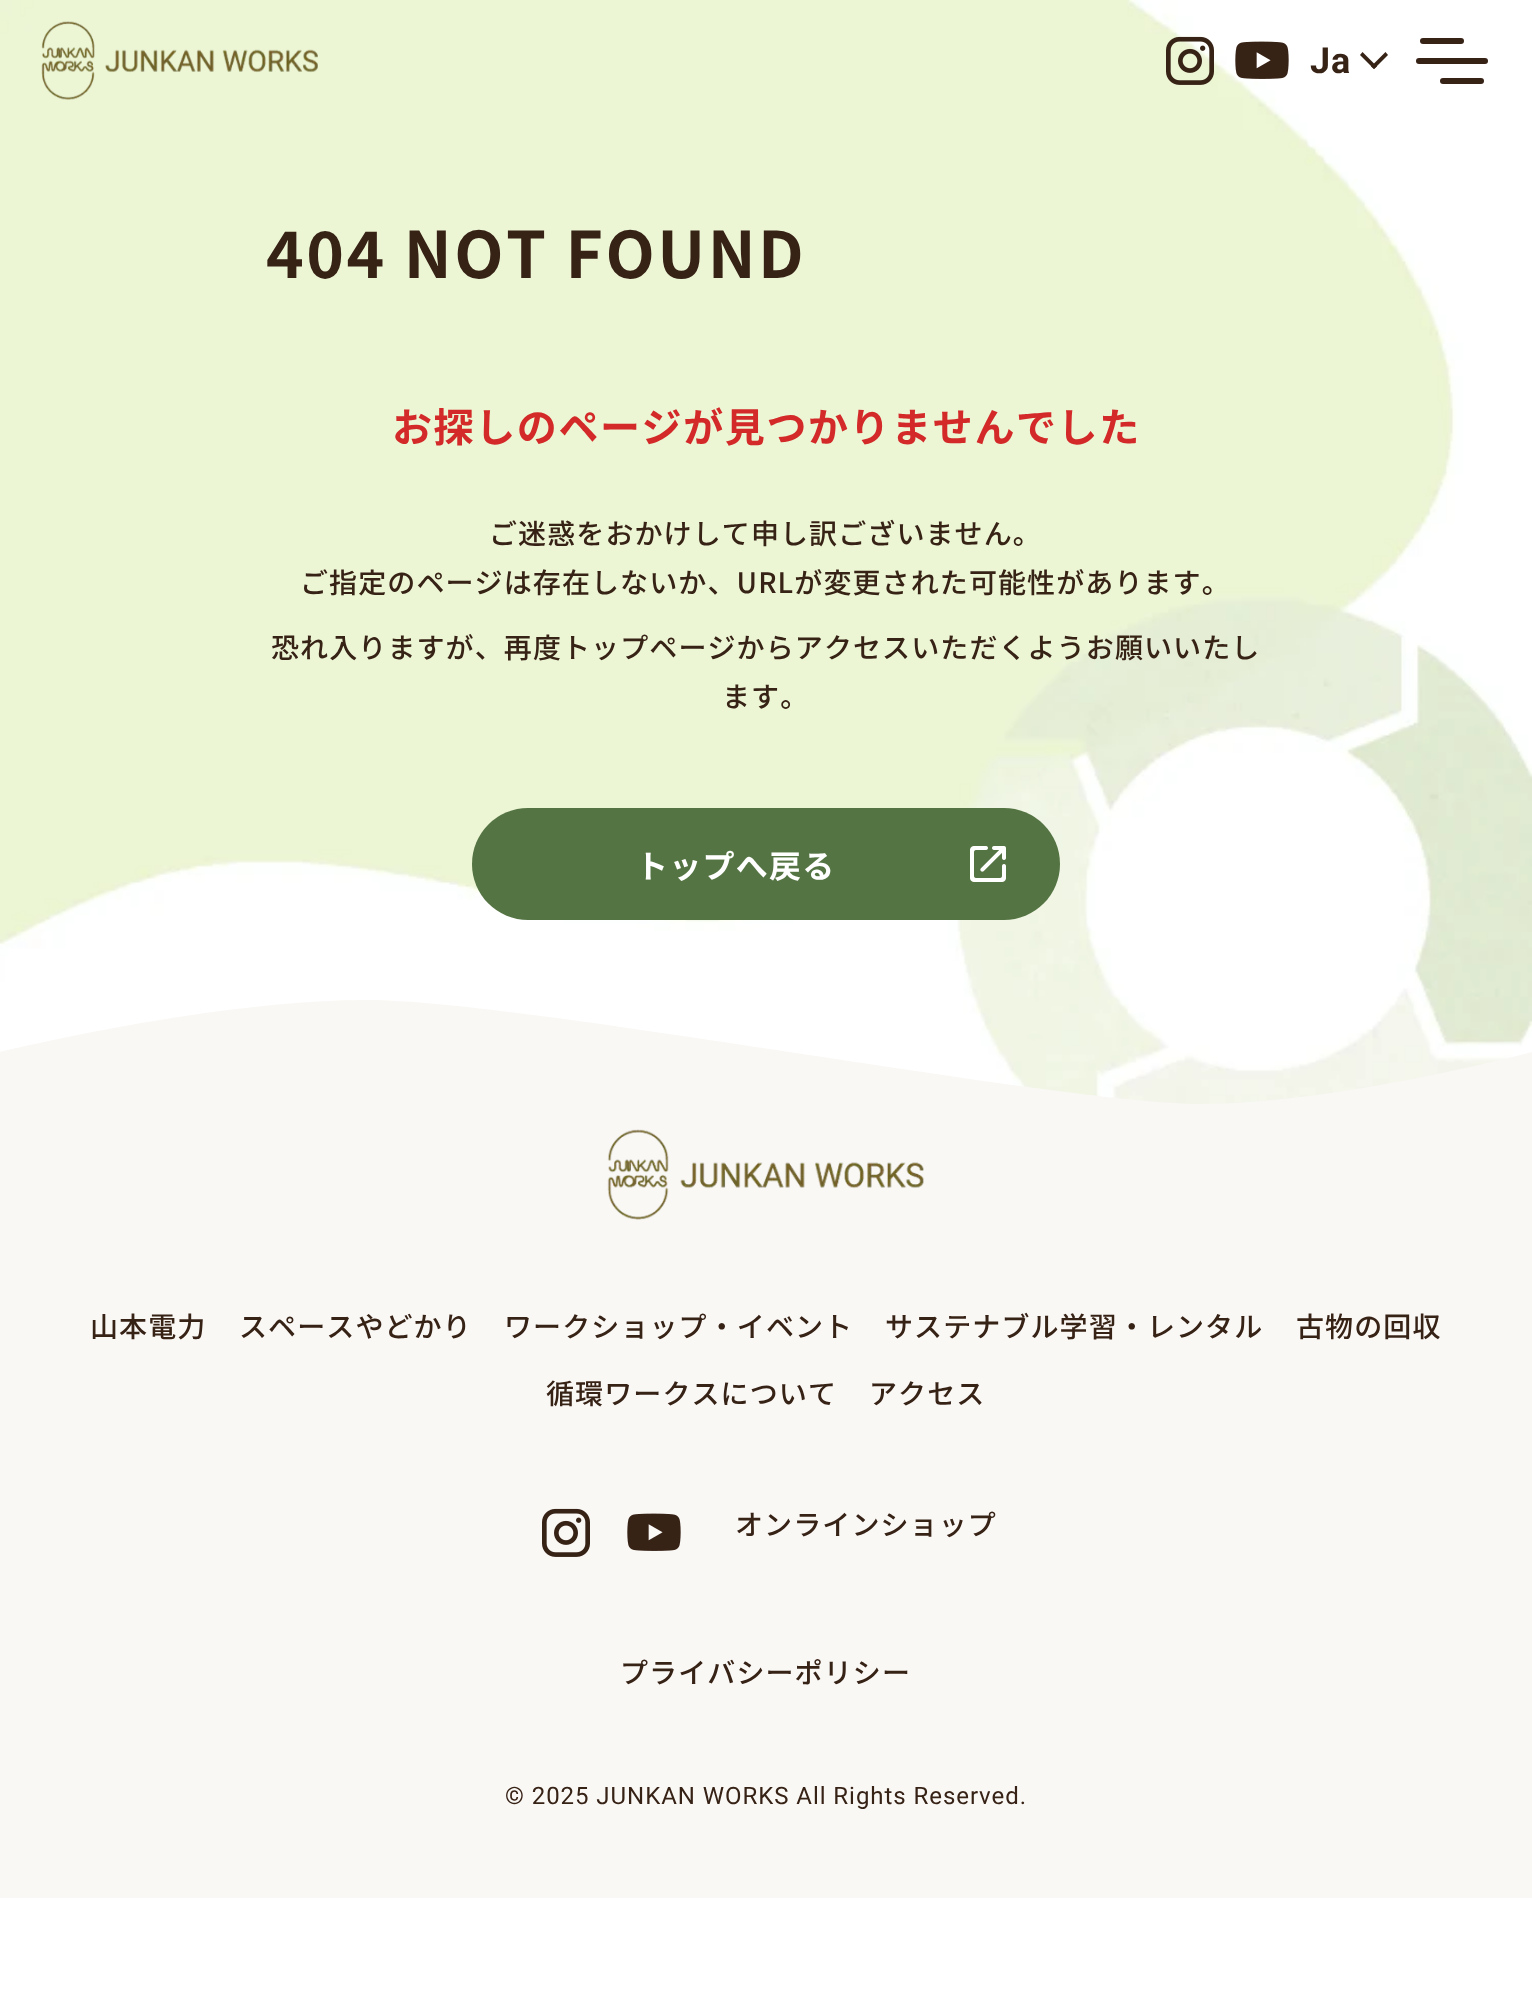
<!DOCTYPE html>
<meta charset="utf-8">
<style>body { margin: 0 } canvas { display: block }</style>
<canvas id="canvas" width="1532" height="2000"></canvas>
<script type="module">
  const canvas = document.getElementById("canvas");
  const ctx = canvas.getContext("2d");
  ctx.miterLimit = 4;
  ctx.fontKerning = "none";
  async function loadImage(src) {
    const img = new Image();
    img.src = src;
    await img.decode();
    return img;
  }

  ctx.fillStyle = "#ffffff";
  ctx.fillRect(0, 0, 1532, 2000);
  ctx.drawImage(await loadImage("img1.png"), 0, 0, 1532, 1104);
  ctx.drawImage(await loadImage("img2.png"), 41, 21, 277, 79);
  ctx.drawImage(await loadImage("img3.png"), 1166, 36, 48, 49);
  ctx.drawImage(await loadImage("img4.png"), 1235, 41, 54, 38);
  ctx.letterSpacing = "1px";
  ctx.font = "bold 36px Roboto";
  ctx.fillStyle = "#372216";
  ctx.fillText("Ja", 1310, 73);
  ctx.beginPath();
  ctx.moveTo(1385.5, 52);
  ctx.lineTo(1388, 55);
  ctx.lineTo(1374, 69);
  ctx.lineTo(1371, 66.5);
  ctx.closePath();
  ctx.fill();
  ctx.beginPath();
  ctx.moveTo(1362.5, 52);
  ctx.lineTo(1377, 66.5);
  ctx.lineTo(1374, 69);
  ctx.lineTo(1360, 55);
  ctx.closePath();
  ctx.fill();
  ctx.beginPath();
  ctx.roundRect(1420, 38, 44, 6, 3);
  ctx.fill();
  ctx.beginPath();
  ctx.roundRect(1416, 58, 72, 6, 3);
  ctx.fill();
  ctx.beginPath();
  ctx.roundRect(1440, 78, 44, 6, 3);
  ctx.fill();
  ctx.letterSpacing = "2.5px";
  ctx.font = "bold 64px Noto Sans JP";
  ctx.fillText("404 NOT FOUND", 266, 278);
  ctx.letterSpacing = "1.6px";
  ctx.font = "bold 40px Noto Sans JP";
  ctx.fillStyle = "#d32929";
  ctx.fillText("お探しのページが見つかりませんでした", 392, 442);
  ctx.letterSpacing = "1.1px";
  ctx.font = "500 28px Noto Sans JP";
  ctx.fillStyle = "#372216";
  ctx.fillText("ご迷惑をおかけして申し訳ございません。", 489, 544);
  ctx.fillText("ご指定のページは存在しないか、URLが変更された可能性があります。", 300, 593);
  ctx.fillText("恐れ入りますが、再度トップページからアクセスいただくようお願いいたし", 271, 658);
  ctx.fillText("ます。", 722, 707);
  ctx.fillStyle = "#547443";
  ctx.beginPath();
  ctx.roundRect(472, 808, 588, 112, 56);
  ctx.fill();
  ctx.letterSpacing = "1.25px";
  ctx.font = "bold 32px Noto Sans JP";
  ctx.fillStyle = "#ffffff";
  ctx.fillText("トップへ戻る", 636, 878);
  ctx.drawImage(await loadImage("img5.png"), 970, 846, 36, 36);
  ctx.save();
  ctx.beginPath();
  ctx.rect(0, 1000, 1532, 898);
  ctx.clip();
  ctx.fillStyle = "#faf8f5";
  ctx.beginPath();
  ctx.moveTo(0, 1052);
  ctx.bezierCurveTo(0, 1052, 211, 1000, 367, 1000);
  ctx.bezierCurveTo(522, 1000, 1061, 1104, 1200, 1104);
  ctx.bezierCurveTo(1339, 1104, 1532, 1052, 1532, 1052);
  ctx.lineTo(1532, 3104);
  ctx.lineTo(0, 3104);
  ctx.closePath();
  ctx.fill();
  ctx.restore();
  ctx.drawImage(await loadImage("img6.png"), 607, 1129, 317, 91);
  ctx.letterSpacing = "1.1px";
  ctx.font = "500 28px Noto Sans JP";
  ctx.fillStyle = "#372216";
  ctx.fillText("山本電力", 90, 1337);
  ctx.fillText("スペースやどかり", 239, 1337);
  ctx.fillText("ワークショップ・イベント", 504, 1337);
  ctx.fillText("サステナブル学習・レンタル", 885, 1337);
  ctx.fillText("古物の回収", 1296, 1337);
  ctx.fillText("循環ワークスについて", 546, 1404);
  ctx.fillText("アクセス", 869, 1404);
  ctx.drawImage(await loadImage("img7.png"), 542, 1508, 48, 49);
  ctx.drawImage(await loadImage("img8.png"), 627, 1513, 54, 38);
  ctx.fillText("オンラインショップ", 735, 1535);
  ctx.fillText("プライバシーポリシー", 620, 1683);
  ctx.letterSpacing = "0.95px";
  ctx.font = "24px Roboto";
  ctx.fillText("© 2025 JUNKAN WORKS All Rights Reserved.", 505, 1804);
</script>
